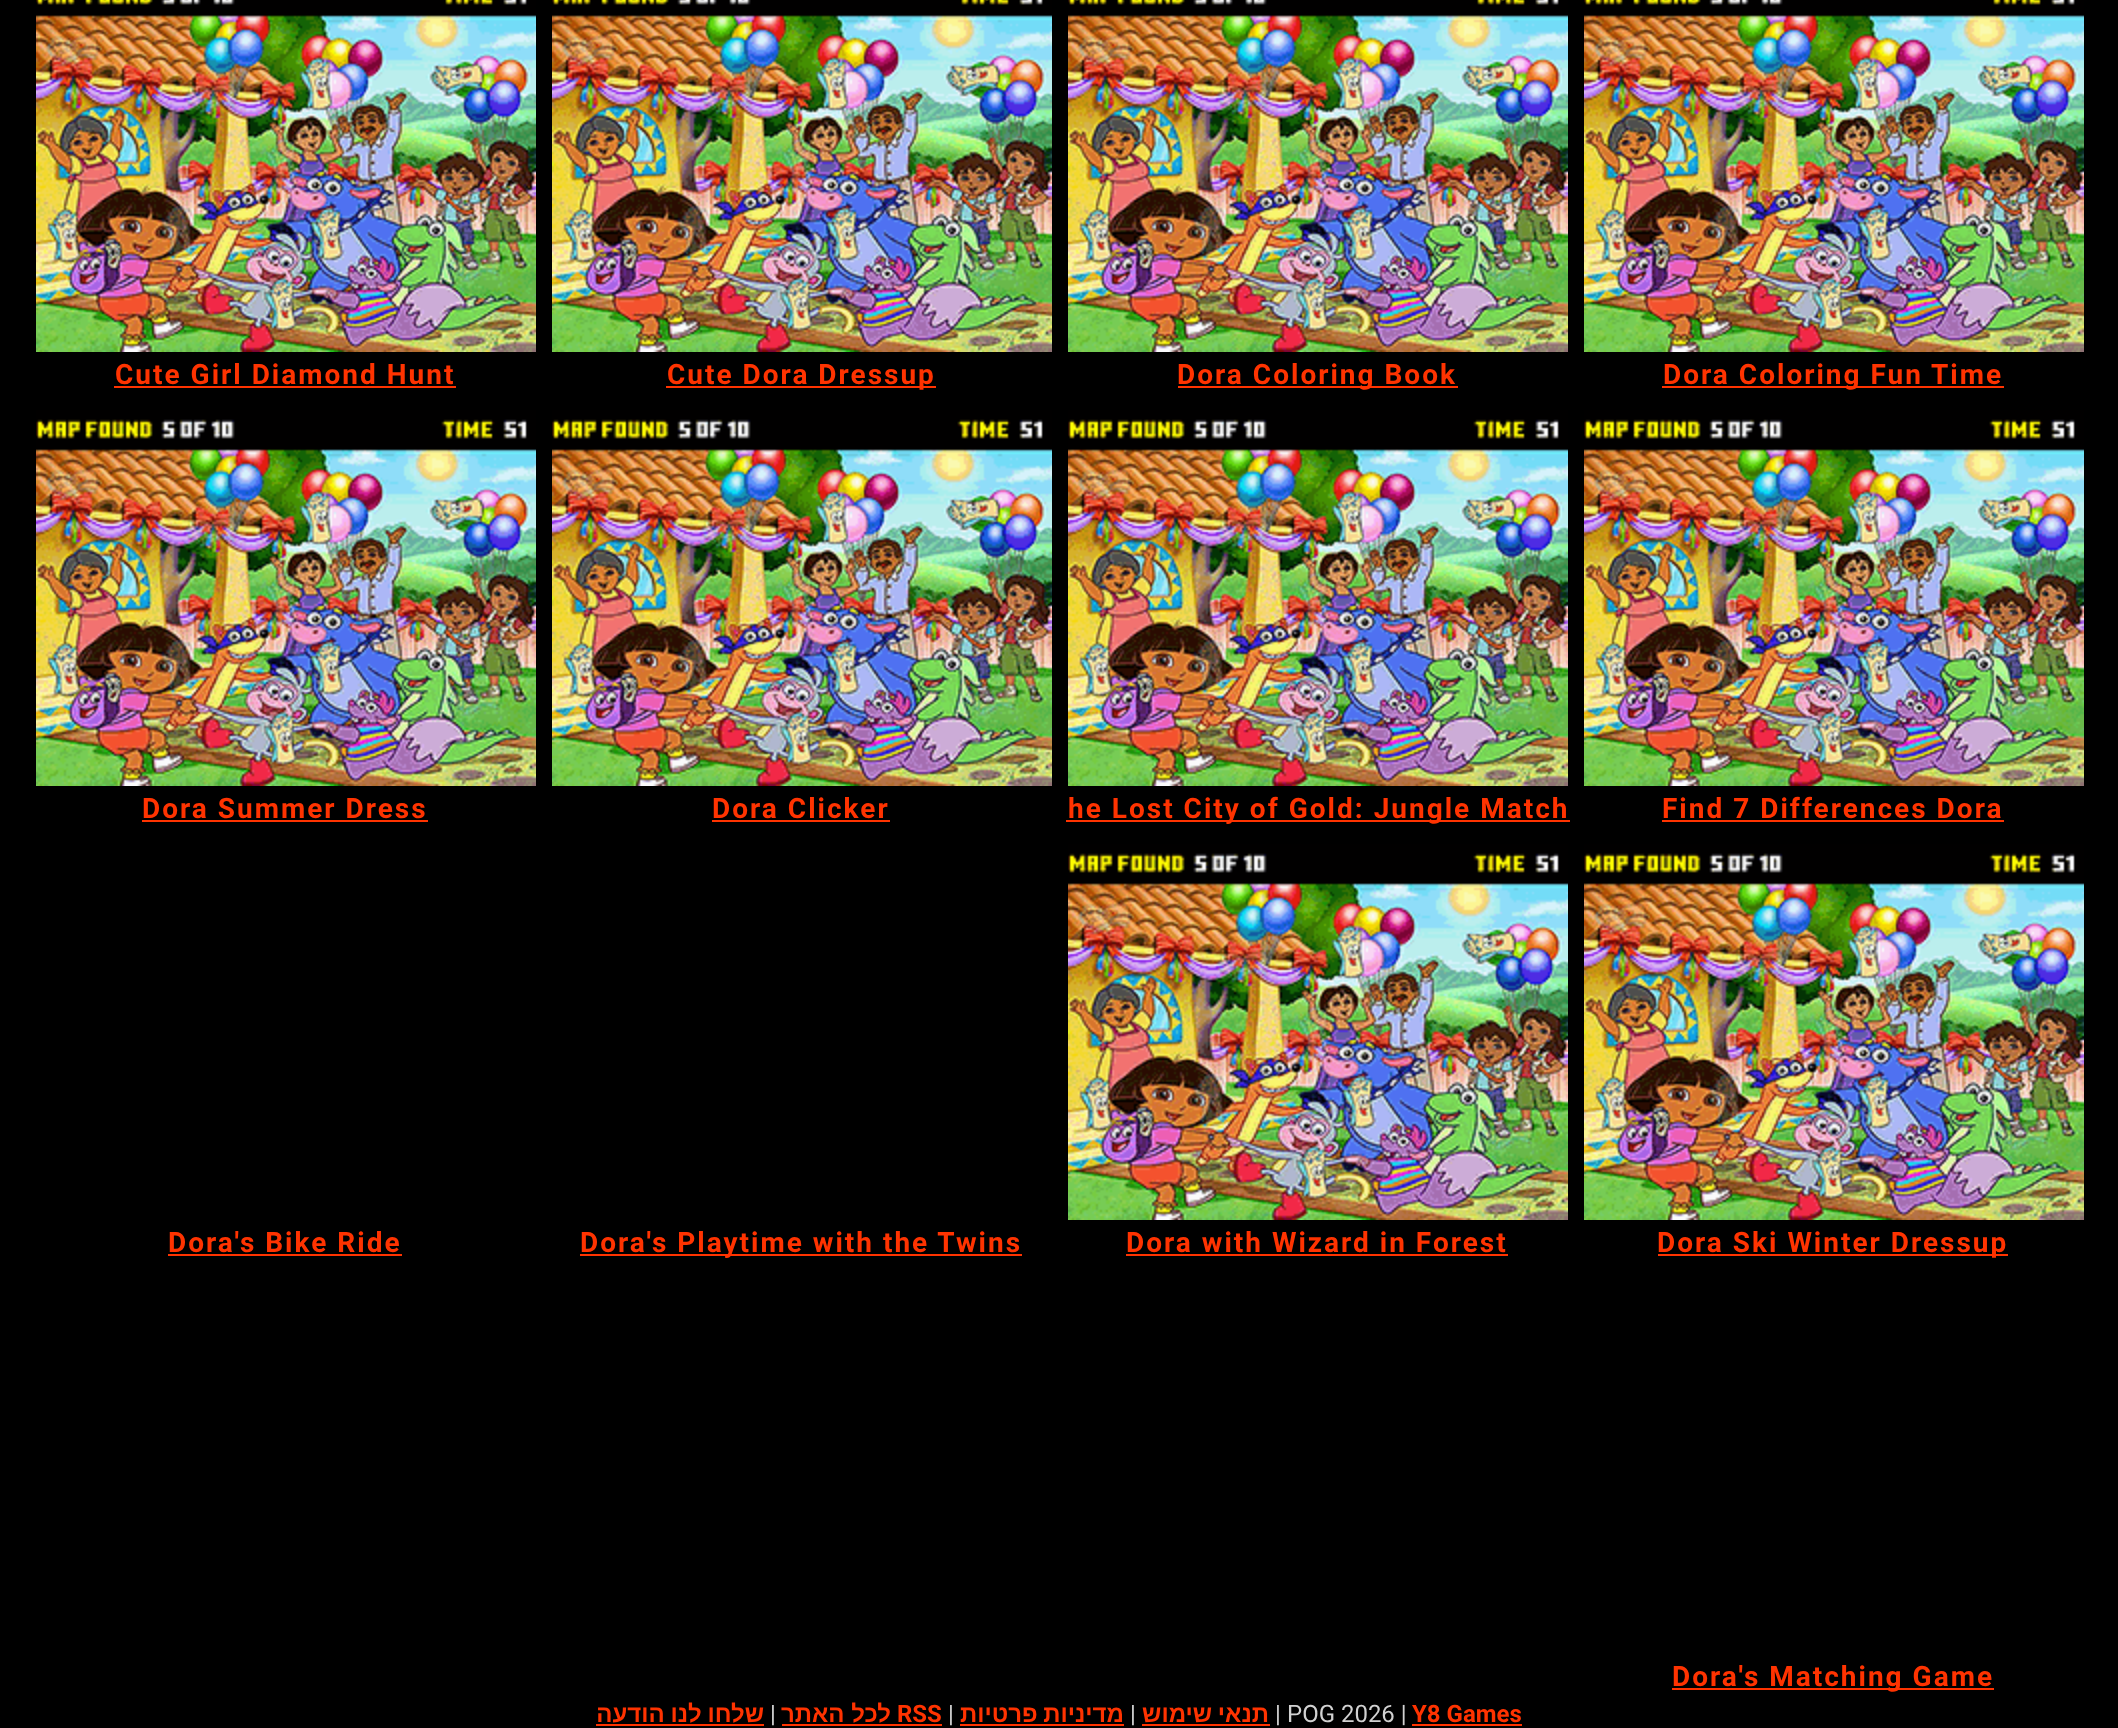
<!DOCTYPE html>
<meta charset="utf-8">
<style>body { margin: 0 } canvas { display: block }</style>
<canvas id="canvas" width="2118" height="1728"></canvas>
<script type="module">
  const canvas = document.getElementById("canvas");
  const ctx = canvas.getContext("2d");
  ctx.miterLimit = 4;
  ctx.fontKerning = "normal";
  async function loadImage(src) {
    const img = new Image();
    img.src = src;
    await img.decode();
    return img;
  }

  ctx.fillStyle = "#000000";
  ctx.fillRect(0, 0, 2118, 1728);
  ctx.drawImage(await loadImage("img1.png"), 36, 0, 500, 352);
  ctx.letterSpacing = "2px";
  ctx.font = "bold 28px Roboto";
  ctx.fillStyle = "#ff3300";
  ctx.fillText("Cute Girl Diamond Hunt", 115, 384);
  ctx.fillRect(114, 386, 342, 2);
  ctx.drawImage(await loadImage("img1.png"), 552, 0, 500, 352);
  ctx.fillRect(666, 386, 270, 2);
  ctx.fillText("Cute Dora Dressup", 667, 384);
  ctx.drawImage(await loadImage("img1.png"), 1068, 0, 500, 352);
  ctx.fillRect(1178, 386, 280, 2);
  ctx.fillText("Dora Coloring Book", 1177, 384);
  ctx.drawImage(await loadImage("img1.png"), 1584, 0, 500, 352);
  ctx.fillRect(1662, 386, 342, 2);
  ctx.fillText("Dora Coloring Fun Time", 1663, 384);
  ctx.drawImage(await loadImage("img2.png"), 36, 410, 500, 376);
  ctx.fillText("Dora Summer Dress", 142, 818);
  ctx.fillRect(142, 820, 286, 2);
  ctx.drawImage(await loadImage("img2.png"), 552, 410, 500, 376);
  ctx.fillText("Dora Clicker", 712, 818);
  ctx.fillRect(712, 820, 178, 2);
  ctx.drawImage(await loadImage("img2.png"), 1068, 410, 500, 376);
  ctx.fillRect(1066, 820, 504, 2);
  ctx.fillText("he Lost City of Gold: Jungle Match", 1068, 818);
  ctx.drawImage(await loadImage("img2.png"), 1584, 410, 500, 376);
  ctx.fillText("Find 7 Differences Dora", 1662, 818);
  ctx.fillRect(1662, 820, 342, 2);
  ctx.fillText("Dora's Bike Ride", 168, 1252);
  ctx.fillRect(168, 1254, 234, 2);
  ctx.fillRect(580, 1254, 442, 2);
  ctx.fillText("Dora's Playtime with the Twins", 580, 1252);
  ctx.drawImage(await loadImage("img2.png"), 1068, 844, 500, 376);
  ctx.fillText("Dora with Wizard in Forest", 1126, 1252);
  ctx.fillRect(1126, 1254, 382, 2);
  ctx.drawImage(await loadImage("img2.png"), 1584, 844, 500, 376);
  ctx.fillRect(1658, 1254, 350, 2);
  ctx.fillText("Dora Ski Winter Dressup", 1657, 1252);
  ctx.fillRect(1672, 1688, 322, 2);
  ctx.fillText("Dora's Matching Game", 1672, 1686);
  ctx.letterSpacing = "0px";
  ctx.wordSpacing = "-1px";
  ctx.direction = "rtl";
  ctx.font = "bold 24px Liberation Sans";
  ctx.fillText("שלחו לנו הודעה", 764, 1722);
  ctx.fillRect(596, 1724, 168, 2);
  ctx.wordSpacing = "0px";
  ctx.direction = "ltr";
  ctx.font = "24px Roboto";
  ctx.fillStyle = "#d1d1d1";
  ctx.fillText("|", 770, 1722);
  ctx.direction = "rtl";
  ctx.font = "bold 24px Liberation Sans";
  ctx.fillStyle = "#ff3300";
  ctx.fillText("לכל האתר", 891, 1722);
  ctx.direction = "ltr";
  ctx.font = "bold 24px Roboto";
  ctx.fillText("RSS", 897, 1722);
  ctx.fillRect(782, 1724, 160, 2);
  ctx.font = "24px Roboto";
  ctx.fillStyle = "#d1d1d1";
  ctx.fillText("|", 948, 1722);
  ctx.wordSpacing = "-1px";
  ctx.direction = "rtl";
  ctx.font = "bold 24px Liberation Sans";
  ctx.fillStyle = "#ff3300";
  ctx.fillText("מדיניות פרטיות", 1124, 1722);
  ctx.fillRect(960, 1724, 164, 2);
  ctx.wordSpacing = "0px";
  ctx.direction = "ltr";
  ctx.font = "24px Roboto";
  ctx.fillStyle = "#d1d1d1";
  ctx.fillText("|", 1130, 1722);
  ctx.wordSpacing = "-1px";
  ctx.direction = "rtl";
  ctx.font = "bold 24px Liberation Sans";
  ctx.fillStyle = "#ff3300";
  ctx.fillText("תנאי שימוש", 1269, 1722);
  ctx.fillRect(1142, 1724, 128, 2);
  ctx.wordSpacing = "0px";
  ctx.direction = "ltr";
  ctx.font = "24px Roboto";
  ctx.fillStyle = "#d1d1d1";
  ctx.fillText("|", 1275, 1722);
  ctx.fillText("POG 2026 |", 1287, 1722);
  ctx.font = "bold 24px Roboto";
  ctx.fillStyle = "#ff3300";
  ctx.fillText("Y8 Games", 1412, 1722);
  ctx.fillRect(1412, 1724, 110, 2);
</script>
